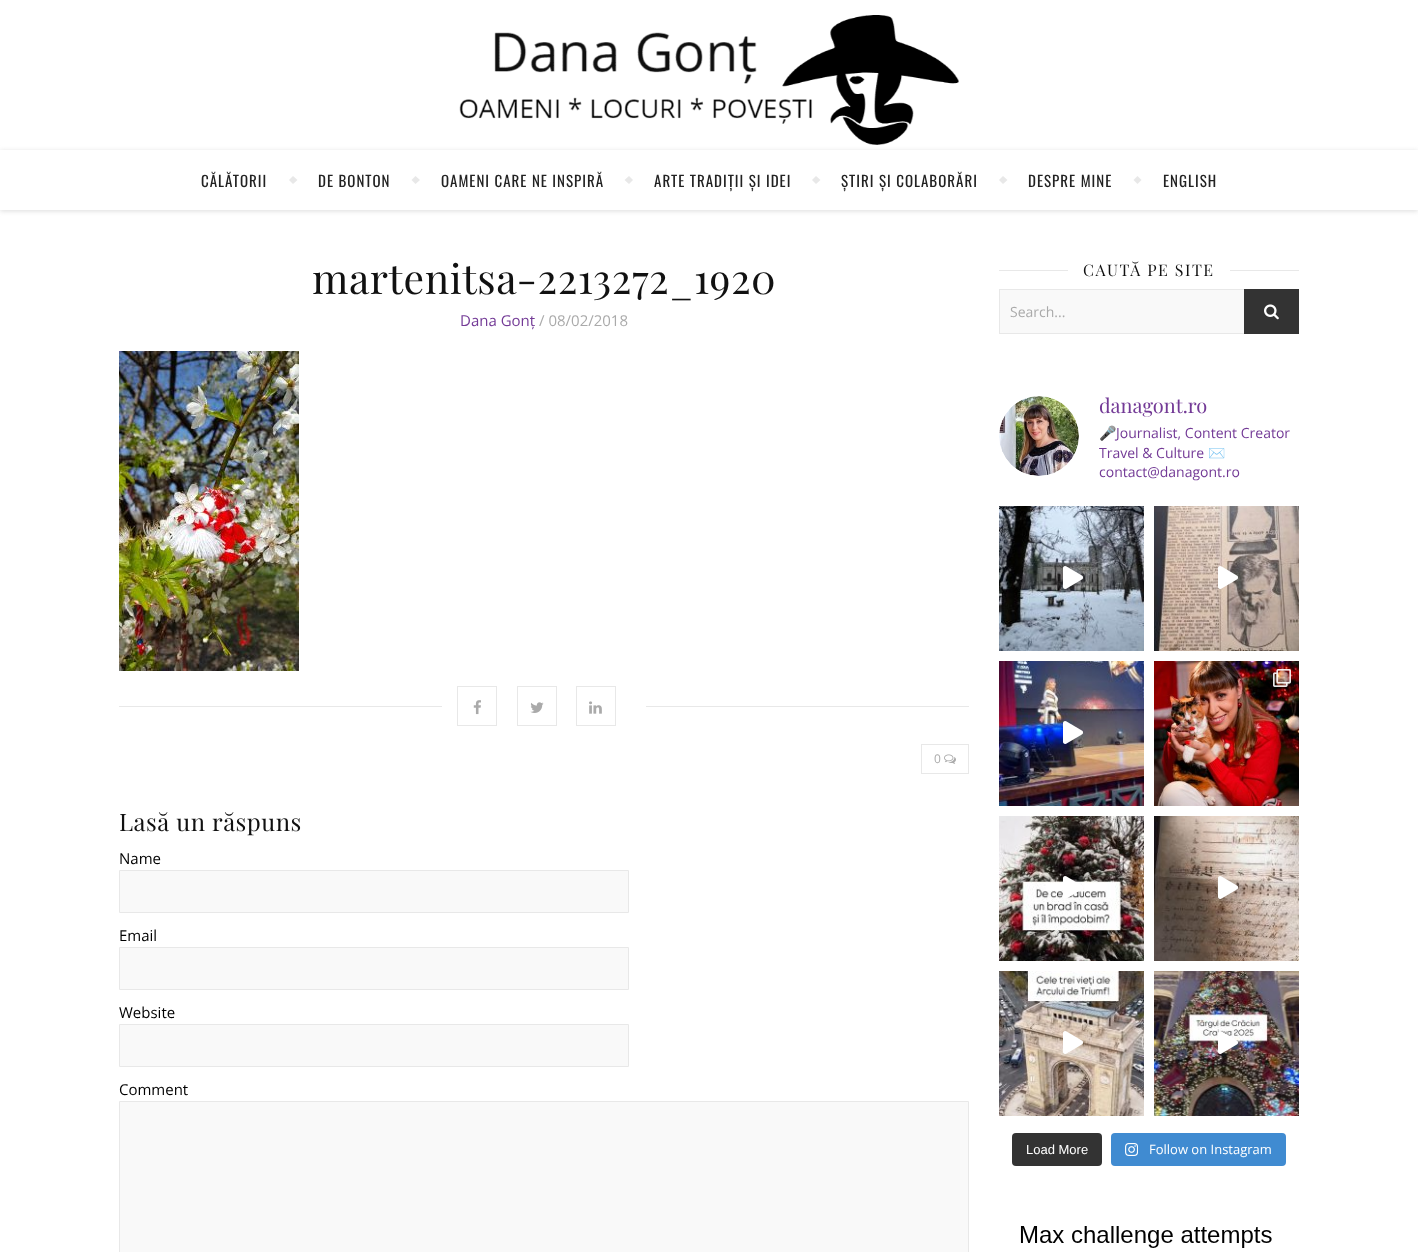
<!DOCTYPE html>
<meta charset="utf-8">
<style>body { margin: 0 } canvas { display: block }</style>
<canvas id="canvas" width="1418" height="1252"></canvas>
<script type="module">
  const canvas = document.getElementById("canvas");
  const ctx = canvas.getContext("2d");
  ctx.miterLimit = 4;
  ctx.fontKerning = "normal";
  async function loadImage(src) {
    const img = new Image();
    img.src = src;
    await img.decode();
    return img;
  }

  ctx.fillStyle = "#ffffff";
  ctx.fillRect(0, 0, 1418, 1252);
  ctx.save();
  ctx.beginPath();
  ctx.moveTo(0, 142);
  ctx.lineTo(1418, 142);
  ctx.lineTo(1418, 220);
  ctx.lineTo(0, 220);
  ctx.closePath();
  ctx.moveTo(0, 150);
  ctx.lineTo(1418, 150);
  ctx.lineTo(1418, 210);
  ctx.lineTo(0, 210);
  ctx.closePath();
  ctx.clip("evenodd");
  ctx.fillStyle = "rgba(185, 185, 185, 0.5)";
  ctx.filter = "blur(2.5px)";
  ctx.beginPath();
  ctx.rect(0, 151, 1418, 60);
  ctx.fill();
  ctx.filter = "none";
  ctx.restore();
  ctx.drawImage(await loadImage("img1.png"), 459, 15, 500, 130);
  ctx.letterSpacing = "1px";
  ctx.font = "15px Oswald";
  ctx.fillStyle = "#222222";
  ctx.fillText("CĂLĂTORII", 201, 187);
  ctx.fillStyle = "#e8e8e8";
  ctx.beginPath();
  ctx.moveTo(289, 180);
  ctx.lineTo(293, 176);
  ctx.lineTo(297.5, 180);
  ctx.lineTo(293, 184);
  ctx.closePath();
  ctx.fill();
  ctx.fillStyle = "#222222";
  ctx.fillText("DE BONTON", 318, 187);
  ctx.fillStyle = "#e8e8e8";
  ctx.beginPath();
  ctx.moveTo(411.5, 180);
  ctx.lineTo(415.5, 176);
  ctx.lineTo(420, 180);
  ctx.lineTo(415.5, 184);
  ctx.closePath();
  ctx.fill();
  ctx.fillStyle = "#222222";
  ctx.fillText("OAMENI CARE NE INSPIRĂ", 441, 187);
  ctx.fillStyle = "#e8e8e8";
  ctx.beginPath();
  ctx.moveTo(624.5, 180);
  ctx.lineTo(629, 176);
  ctx.lineTo(633, 180);
  ctx.lineTo(629, 184);
  ctx.closePath();
  ctx.fill();
  ctx.fillStyle = "#222222";
  ctx.fillText("ARTE TRADIȚII ȘI IDEI", 654, 187);
  ctx.fillStyle = "#e8e8e8";
  ctx.beginPath();
  ctx.moveTo(812, 180);
  ctx.lineTo(816, 176);
  ctx.lineTo(820.5, 180);
  ctx.lineTo(816, 184);
  ctx.closePath();
  ctx.fill();
  ctx.fillStyle = "#222222";
  ctx.fillText("ȘTIRI ȘI COLABORĂRI", 841, 187);
  ctx.fillStyle = "#e8e8e8";
  ctx.beginPath();
  ctx.moveTo(999, 180);
  ctx.lineTo(1003, 176);
  ctx.lineTo(1007.5, 180);
  ctx.lineTo(1003, 184);
  ctx.closePath();
  ctx.fill();
  ctx.fillStyle = "#222222";
  ctx.fillText("DESPRE MINE", 1028, 187);
  ctx.fillStyle = "#e8e8e8";
  ctx.beginPath();
  ctx.moveTo(1133.5, 180);
  ctx.lineTo(1137.5, 176);
  ctx.lineTo(1141.5, 180);
  ctx.lineTo(1137.5, 184);
  ctx.closePath();
  ctx.fill();
  ctx.fillStyle = "#222222";
  ctx.fillText("ENGLISH", 1163, 187);
  ctx.letterSpacing = "0.5px";
  ctx.font = "41px Playfair Display";
  ctx.fillStyle = "#111111";
  ctx.fillText("martenitsa-2213272_1920", 312, 294);
  ctx.letterSpacing = "0px";
  ctx.font = "15px Open Sans";
  ctx.fillStyle = "#733a96";
  ctx.fillText("Dana Gonț", 460, 326);
  ctx.fillStyle = "#aaaaaa";
  ctx.fillText("/ 08/02/2018", 539, 326);
  ctx.drawImage(await loadImage("img2.png"), 119, 351, 180, 320);
  ctx.fillStyle = "#e8e8e8";
  ctx.fillRect(119, 706, 323, 1);
  ctx.strokeStyle = "#e8e8e8";
  ctx.strokeRect(457.5, 686.5, 39, 39);
  ctx.drawImage(await loadImage("img3.png"), 473, 700, 8, 15);
  ctx.strokeRect(517.5, 686.5, 39, 39);
  ctx.drawImage(await loadImage("img4.png"), 530, 702, 14, 11);
  ctx.strokeRect(576.5, 686.5, 39, 39);
  ctx.drawImage(await loadImage("img5.png"), 589, 701, 13, 13);
  ctx.fillRect(646, 706, 323, 1);
  ctx.strokeRect(921.5, 744.5, 47, 29);
  ctx.font = "12px Open Sans";
  ctx.fillStyle = "#aaaaaa";
  ctx.fillText("0", 934, 763);
  ctx.drawImage(await loadImage("img6.png"), 944, 754, 12, 10);
  ctx.letterSpacing = "0.5px";
  ctx.font = "24px Playfair Display";
  ctx.fillStyle = "#111111";
  ctx.fillText("Lasă un răspuns", 119, 831);
  ctx.letterSpacing = "0px";
  ctx.font = "15px Open Sans";
  ctx.fillStyle = "#000000";
  ctx.fillText("Name", 119, 864);
  ctx.fillStyle = "#f9f9f9";
  ctx.beginPath();
  ctx.rect(119.5, 870.5, 509, 42);
  ctx.fill();
  ctx.stroke();
  ctx.fillStyle = "#000000";
  ctx.fillText("Email", 119, 941);
  ctx.fillStyle = "#f9f9f9";
  ctx.beginPath();
  ctx.rect(119.5, 947.5, 509, 42);
  ctx.fill();
  ctx.stroke();
  ctx.fillStyle = "#000000";
  ctx.fillText("Website", 119, 1018);
  ctx.fillStyle = "#f9f9f9";
  ctx.beginPath();
  ctx.rect(119.5, 1024.5, 509, 42);
  ctx.fill();
  ctx.stroke();
  ctx.fillStyle = "#000000";
  ctx.fillText("Comment", 119, 1095);
  ctx.fillStyle = "#f9f9f9";
  ctx.beginPath();
  ctx.rect(119.5, 1101.5, 849, 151);
  ctx.fill();
  ctx.stroke();
  ctx.fillStyle = "#e8e8e8";
  ctx.fillRect(999, 270, 69, 1);
  ctx.letterSpacing = "1.5px";
  ctx.font = "16px Playfair Display";
  ctx.fillStyle = "#111111";
  ctx.fillText("CAUTĂ PE SITE", 1083, 276);
  ctx.fillStyle = "#e8e8e8";
  ctx.fillRect(1230, 270, 69, 1);
  ctx.fillStyle = "#f9f9f9";
  ctx.fillRect(1000, 290, 244, 43);
  ctx.strokeRect(999.5, 289.5, 299, 44);
  ctx.letterSpacing = "0px";
  ctx.font = "14px Open Sans";
  ctx.fillStyle = "#aaaaaa";
  ctx.fillText("Search...", 1010, 317);
  ctx.fillStyle = "#333333";
  ctx.fillRect(1244, 289, 55, 45);
  ctx.drawImage(await loadImage("img7.png"), 1264, 304, 15, 16);
  ctx.drawImage(await loadImage("img8.png"), 999, 396, 80, 80);
  ctx.font = "20px Playfair Display";
  ctx.fillStyle = "#733a96";
  ctx.fillText("danagont.ro", 1099, 413);
  ctx.font = "14px Noto Color Emoji";
  ctx.fillText("🎤", 1099, 438);
  ctx.font = "14px Open Sans";
  ctx.fillText("Journalist, Content Creator", 1116, 438);
  ctx.fillText("Travel & Culture", 1099, 458);
  ctx.font = "14px Noto Color Emoji";
  ctx.fillText("✉️", 1208, 458);
  ctx.font = "14px Open Sans";
  ctx.fillText("contact@danagont.ro", 1099, 477);
  ctx.drawImage(await loadImage("img9.png"), 999, 506, 145, 145);
  ctx.drawImage(await loadImage("img10.png"), 1063, 566, 20, 23);
  ctx.drawImage(await loadImage("img11.png"), 1154, 506, 145, 145);
  ctx.drawImage(await loadImage("img12.png"), 1218, 566, 20, 23);
  ctx.drawImage(await loadImage("img13.png"), 999, 661, 145, 145);
  ctx.drawImage(await loadImage("img14.png"), 1063, 721, 20, 23);
  ctx.drawImage(await loadImage("img15.png"), 1154, 661, 145, 145);
  ctx.drawImage(await loadImage("img16.png"), 1273, 669, 18, 18);
  ctx.drawImage(await loadImage("img17.png"), 999, 816, 145, 145);
  ctx.drawImage(await loadImage("img18.png"), 1063, 876, 20, 22);
  ctx.drawImage(await loadImage("img19.png"), 1154, 816, 145, 145);
  ctx.drawImage(await loadImage("img20.png"), 1218, 876, 20, 23);
  ctx.drawImage(await loadImage("img21.png"), 999, 971, 145, 145);
  ctx.drawImage(await loadImage("img22.png"), 1063, 1031, 20, 23);
  ctx.drawImage(await loadImage("img23.png"), 1154, 971, 145, 145);
  ctx.drawImage(await loadImage("img24.png"), 1218, 1031, 20, 23);
  ctx.fillStyle = "#333333";
  ctx.beginPath();
  ctx.roundRect(1012, 1133, 90, 33, 4);
  ctx.fill();
  ctx.font = "13px Liberation Sans";
  ctx.fillStyle = "#ffffff";
  ctx.fillText("Load More", 1026, 1154);
  ctx.fillStyle = "#408bd1";
  ctx.beginPath();
  ctx.roundRect(1111, 1133, 175, 33, 4);
  ctx.fill();
  ctx.drawImage(await loadImage("img25.png"), 1125, 1143, 13, 13);
  ctx.font = "13px Open Sans";
  ctx.fillStyle = "#ffffff";
  ctx.fillText("Follow on Instagram", 1149, 1154);
  ctx.drawImage(await loadImage("img26.png"), 1020, 1226, 252, 22);
</script>
